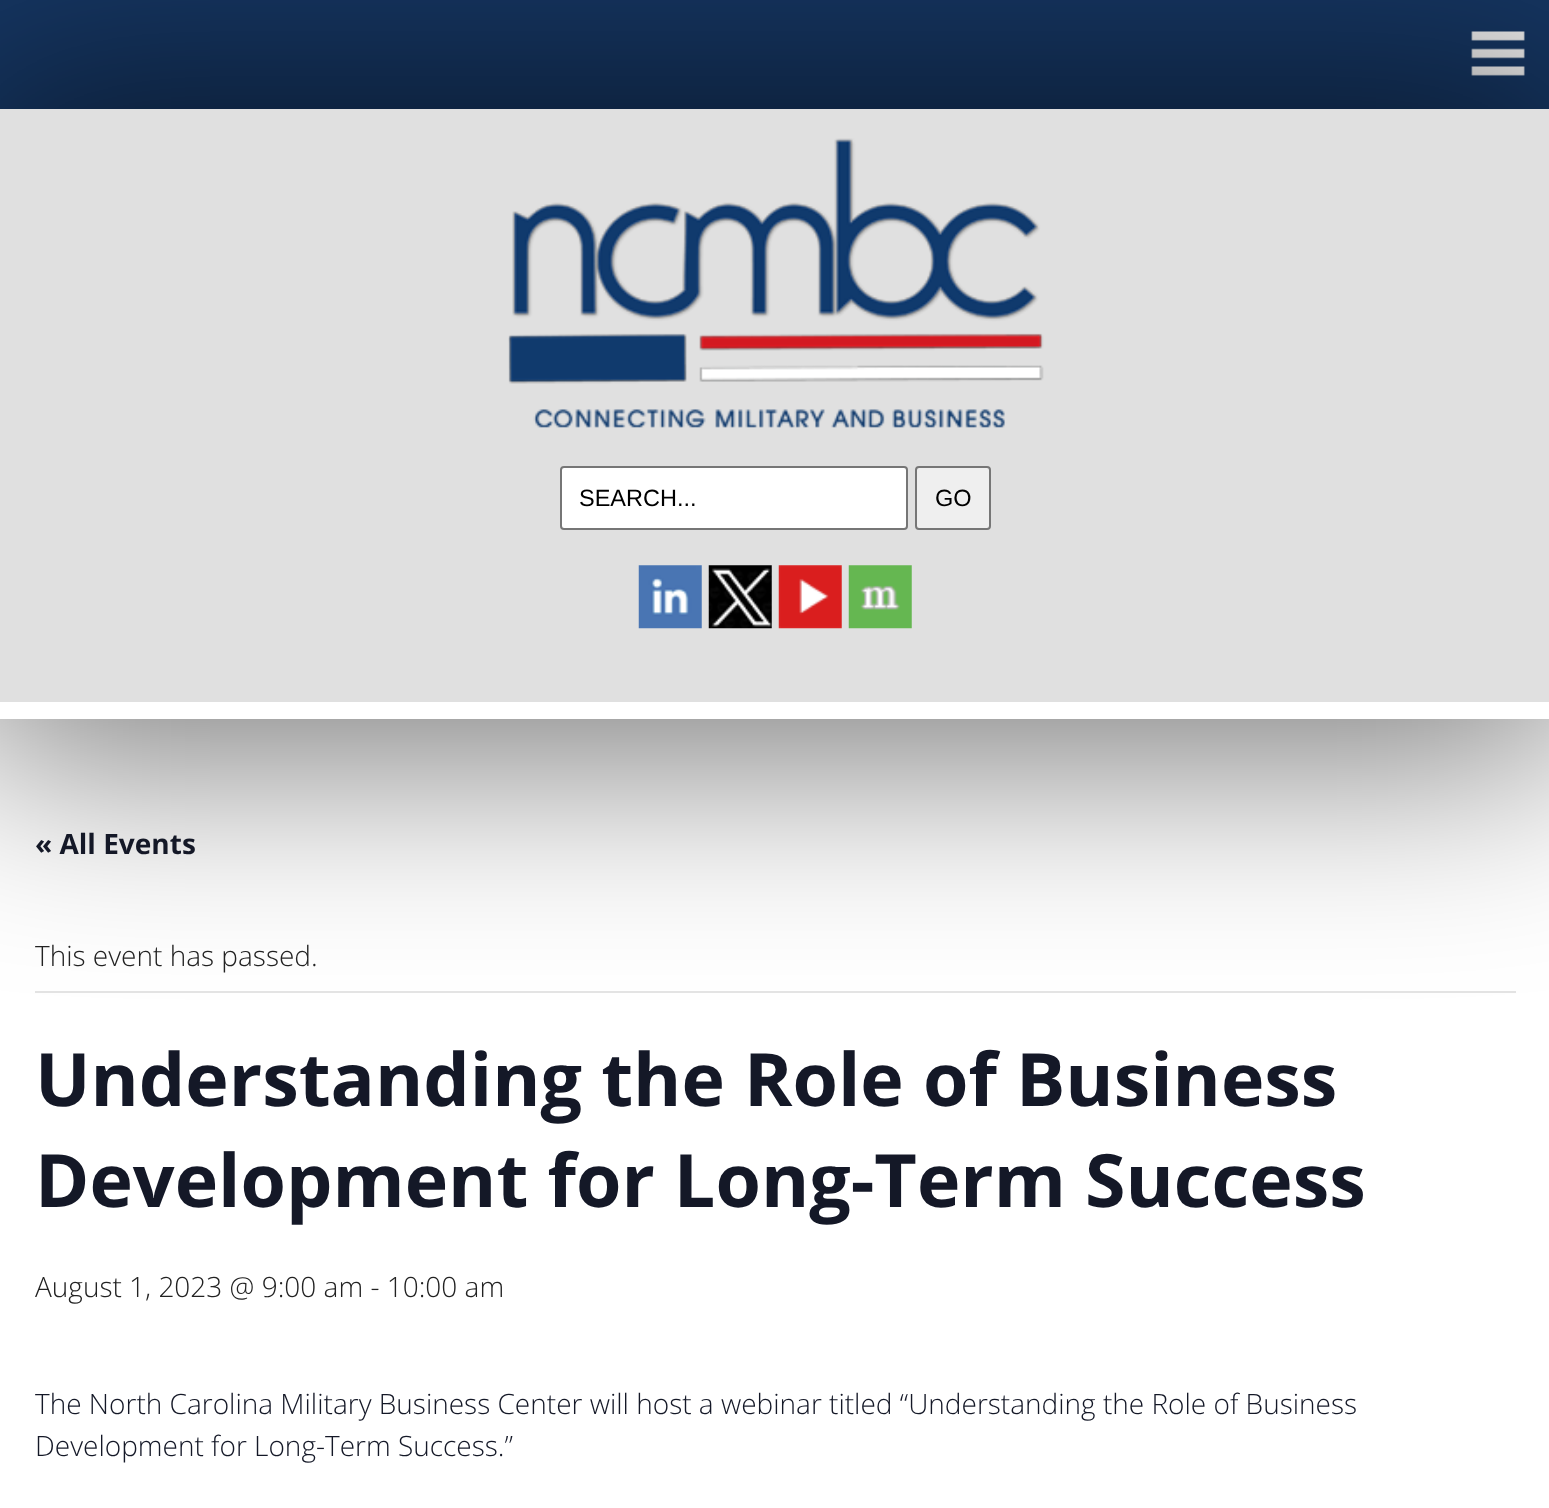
<!DOCTYPE html>
<meta charset="utf-8">
<style>body { margin: 0 } canvas { display: block }</style>
<canvas id="canvas" width="1549" height="1508"></canvas>
<script type="module">
  const canvas = document.getElementById("canvas");
  const ctx = canvas.getContext("2d");
  ctx.miterLimit = 4;
  ctx.fontKerning = "normal";
  async function loadImage(src) {
    const img = new Image();
    img.src = src;
    await img.decode();
    return img;
  }

  ctx.fillStyle = "#ffffff";
  ctx.fillRect(0, 0, 1549, 1508);
  ctx.fillStyle = "#163764";
  ctx.fillRect(0, 0, 1549, 109);
  ctx.drawImage(await loadImage("img1.png"), 1471, 31, 54, 45);
  ctx.fillStyle = "#e4e4e4";
  ctx.fillRect(35, 991, 1481, 2);
  ctx.fillStyle = "rgba(0, 0, 0, 0.55)";
  ctx.filter = "blur(107px)";
  ctx.beginPath();
  ctx.rect(-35, 77, 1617, 677);
  ctx.fill();
  ctx.filter = "none";
  ctx.fillStyle = "#e0e0e0";
  ctx.fillRect(0, 109, 1549, 593);
  ctx.fillStyle = "#ffffff";
  ctx.fillRect(0, 702, 1549, 17);
  ctx.drawImage(await loadImage("img2.png"), 508, 138, 536, 290);
  ctx.beginPath();
  ctx.roundRect(561, 467, 346, 62, 3);
  ctx.fill();
  ctx.strokeStyle = "#767676";
  ctx.lineWidth = 2;
  ctx.stroke();
  ctx.font = "23.5px Liberation Sans";
  ctx.fillStyle = "#000000";
  ctx.fillText("SEARCH...", 579, 506);
  ctx.fillStyle = "#efefef";
  ctx.beginPath();
  ctx.roundRect(916, 467, 74, 62, 3);
  ctx.fill();
  ctx.stroke();
  ctx.fillStyle = "#000000";
  ctx.fillText("GO", 935, 506);
  ctx.drawImage(await loadImage("img3.png"), 638, 565, 64, 64);
  ctx.drawImage(await loadImage("img4.png"), 708, 565, 64, 64);
  ctx.drawImage(await loadImage("img5.png"), 778, 565, 64, 64);
  ctx.drawImage(await loadImage("img6.png"), 848, 565, 64, 64);
  ctx.font = "bold 28px Open Sans";
  ctx.fillStyle = "#141827";
  ctx.fillText("« All Events", 35, 854);
  ctx.font = "300 28px Open Sans";
  ctx.fillStyle = "#222222";
  ctx.fillText("This event has passed.", 35, 966);
  ctx.font = "bold 73.5px Open Sans";
  ctx.fillStyle = "#141827";
  ctx.fillText("Understanding the Role of Business", 35, 1106);
  ctx.fillText("Development for Long-Term Success", 35, 1207);
  ctx.font = "300 28px Open Sans";
  ctx.fillStyle = "#222222";
  ctx.fillText("August 1, 2023 @ 9:00 am - 10:00 am", 35, 1297);
  ctx.fillStyle = "#141827";
  ctx.fillText("The North Carolina Military Business Center will host a webinar titled “Understanding the Role of Business", 35, 1414);
  ctx.fillText("Development for Long-Term Success.”", 35, 1456);
</script>
